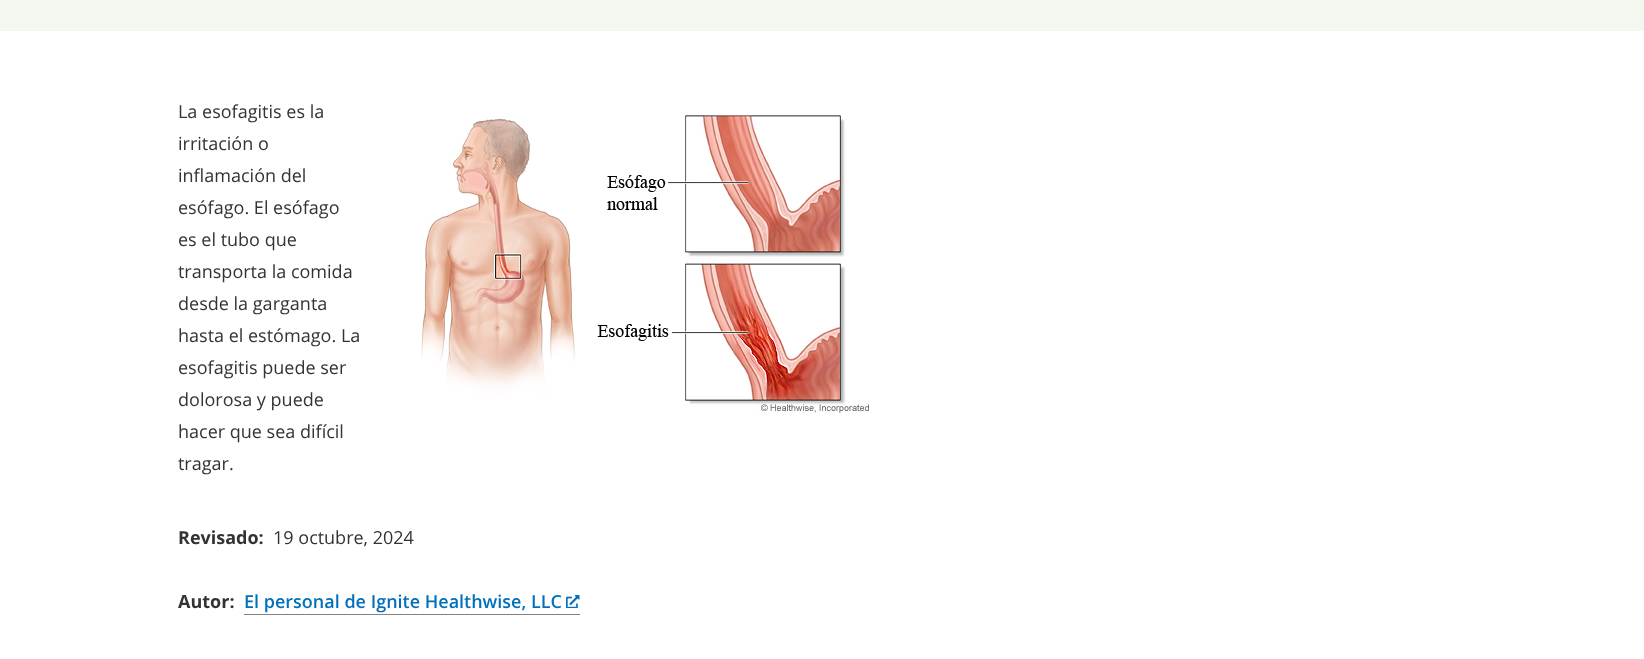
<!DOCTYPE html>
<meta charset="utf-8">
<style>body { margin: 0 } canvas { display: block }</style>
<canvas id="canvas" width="1644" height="659"></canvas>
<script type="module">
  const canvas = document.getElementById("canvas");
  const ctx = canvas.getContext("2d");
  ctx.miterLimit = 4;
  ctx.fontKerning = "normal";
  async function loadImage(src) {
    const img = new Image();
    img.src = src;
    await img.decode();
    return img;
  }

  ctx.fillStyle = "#ffffff";
  ctx.fillRect(0, 0, 1644, 659);
  ctx.fillStyle = "#f2f8ef";
  ctx.fillRect(0, 0, 1644, 31);
  ctx.font = "18px Open Sans";
  ctx.fillStyle = "#333333";
  ctx.fillText("La esofagitis es la", 178, 118);
  ctx.fillText("irritación o", 178, 150);
  ctx.fillText("inflamación del", 178, 182);
  ctx.fillText("esófago. El esófago", 178, 214);
  ctx.fillText("es el tubo que", 178, 246);
  ctx.fillText("transporta la comida", 178, 278);
  ctx.fillText("desde la garganta", 178, 310);
  ctx.fillText("hasta el estómago. La", 178, 342);
  ctx.fillText("esofagitis puede ser", 178, 374);
  ctx.fillText("dolorosa y puede", 178, 406);
  ctx.fillText("hacer que sea difícil", 178, 438);
  ctx.fillText("tragar.", 178, 470);
  ctx.drawImage(await loadImage("img1.png"), 421, 115, 449, 298);
  ctx.font = "bold 18px Open Sans";
  ctx.fillText("Revisado:", 178, 544);
  ctx.font = "18px Open Sans";
  ctx.fillText("19 octubre, 2024", 273, 544);
  ctx.font = "bold 18px Open Sans";
  ctx.fillText("Autor:", 178, 608);
  ctx.fillStyle = "#818283";
  ctx.fillRect(244, 614, 336, 1);
  ctx.font = "600 18px Open Sans";
  ctx.fillStyle = "#0170bc";
  ctx.fillText("El personal de Ignite Healthwise, LLC", 244, 608);
  ctx.drawImage(await loadImage("img2.png"), 566, 595, 14, 13);
</script>
